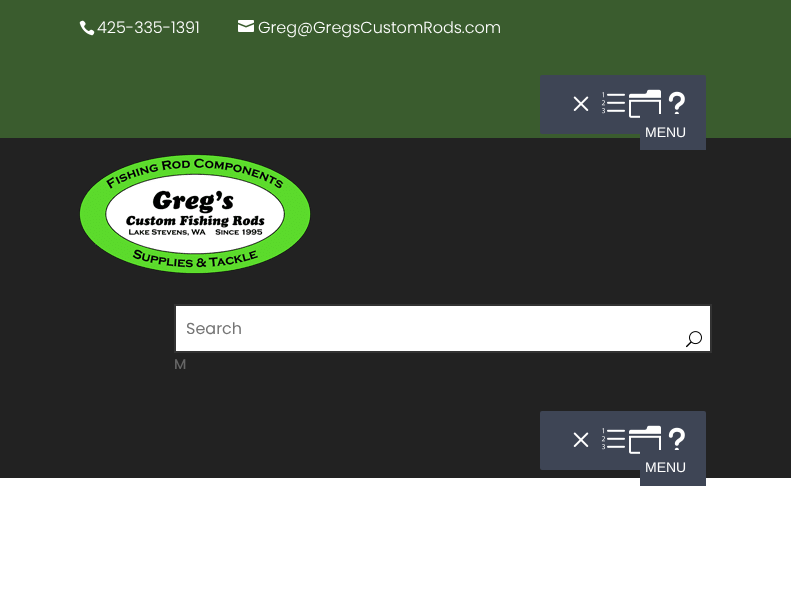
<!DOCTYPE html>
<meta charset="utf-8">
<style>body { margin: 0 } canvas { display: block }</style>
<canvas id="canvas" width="791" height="589"></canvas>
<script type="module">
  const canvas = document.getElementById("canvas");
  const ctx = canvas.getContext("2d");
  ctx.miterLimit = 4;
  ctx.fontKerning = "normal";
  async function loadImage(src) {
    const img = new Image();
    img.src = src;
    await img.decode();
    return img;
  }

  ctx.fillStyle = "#ffffff";
  ctx.fillRect(0, 0, 791, 589);
  ctx.fillStyle = "#3a5c2e";
  ctx.fillRect(0, 0, 791, 138);
  ctx.drawImage(await loadImage("img1.png"), 79, 20, 16, 16);
  ctx.font = "300 16px Poppins";
  ctx.fillStyle = "#ffffff";
  ctx.fillText("425-335-1391", 97, 33);
  ctx.drawImage(await loadImage("img2.png"), 238, 20, 16, 12);
  ctx.fillText("Greg@GregsCustomRods.com", 258, 33);
  ctx.fillStyle = "#3e4555";
  ctx.beginPath();
  ctx.roundRect(540, 75, 166, 59, 2);
  ctx.fill();
  ctx.drawImage(await loadImage("img3.png"), 573, 89, 112, 29);
  ctx.fillStyle = "#222222";
  ctx.fillRect(0, 138, 791, 340);
  ctx.fillStyle = "#3e4555";
  ctx.fillRect(640, 114, 66, 36);
  ctx.font = "14px Liberation Sans";
  ctx.fillStyle = "#ffffff";
  ctx.fillText("MENU", 645, 137);
  ctx.drawImage(await loadImage("img4.png"), 79, 154, 232, 120);
  ctx.beginPath();
  ctx.rect(175, 305, 536, 47);
  ctx.fill();
  ctx.strokeStyle = "#333333";
  ctx.lineWidth = 2;
  ctx.stroke();
  ctx.font = "16px Poppins";
  ctx.fillStyle = "#757575";
  ctx.fillText("Search", 186, 334);
  ctx.drawImage(await loadImage("img5.png"), 686, 331, 16, 17);
  ctx.font = "500 14px Poppins";
  ctx.fillStyle = "#666666";
  ctx.fillText("M", 174, 369);
  ctx.fillStyle = "#3e4555";
  ctx.beginPath();
  ctx.roundRect(540, 411, 166, 59, 2);
  ctx.fill();
  ctx.drawImage(await loadImage("img3.png"), 573, 425, 112, 29);
  ctx.fillRect(640, 450, 66, 36);
  ctx.font = "14px Liberation Sans";
  ctx.fillStyle = "#ffffff";
  ctx.fillText("MENU", 645, 472);
</script>
